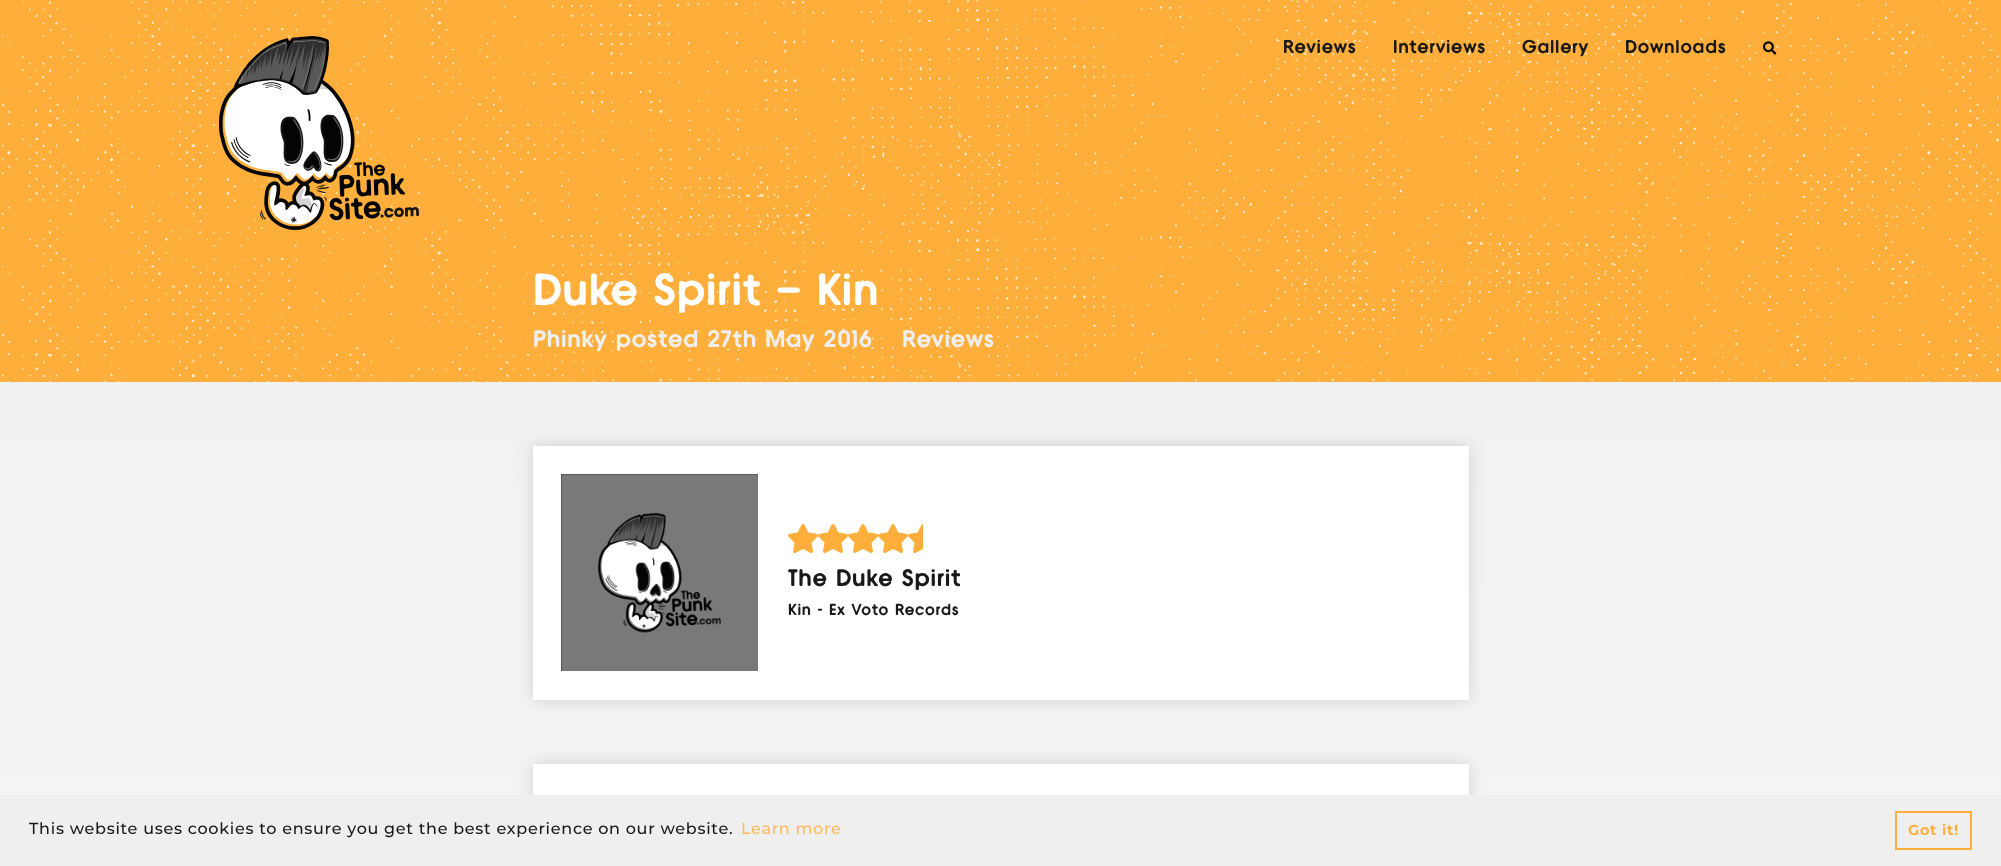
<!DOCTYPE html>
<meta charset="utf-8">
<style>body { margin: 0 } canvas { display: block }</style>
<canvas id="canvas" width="2001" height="866"></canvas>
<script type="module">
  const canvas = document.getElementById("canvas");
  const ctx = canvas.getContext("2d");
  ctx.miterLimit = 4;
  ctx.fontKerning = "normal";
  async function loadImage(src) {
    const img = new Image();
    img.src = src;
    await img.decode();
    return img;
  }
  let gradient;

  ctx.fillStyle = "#ffffff";
  ctx.fillRect(0, 0, 2001, 866);
  gradient = ctx.createLinearGradient(1000, 0, 1001, 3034);
  gradient.addColorStop(0, "#efefef");
  gradient.addColorStop(1, "#ffffff");
  ctx.fillStyle = gradient;
  ctx.fillRect(0, 382, 2001, 413);
  ctx.fillStyle = "#feaf3b";
  ctx.fillRect(0, 0, 2001, 382);
  ctx.drawImage(await loadImage("img1.png"), 1, 0, 1998, 230);
  ctx.drawImage(await loadImage("img2.png"), 219, 36, 200, 194);
  ctx.letterSpacing = "0.72px";
  ctx.font = "bold 18.75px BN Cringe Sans";
  ctx.fillStyle = "#191919";
  ctx.fillText("Reviews", 1283, 53);
  ctx.fillText("Interviews", 1393, 53);
  ctx.fillText("Gallery", 1522, 53);
  ctx.fillText("Downloads", 1625, 53);
  ctx.drawImage(await loadImage("img3.png"), 1763, 41, 14, 14);
  ctx.drawImage(await loadImage("img4.png"), 1, 230, 1998, 152);
  ctx.font = "bold 45px BN Cringe Sans";
  ctx.fillStyle = "#ffffff";
  ctx.fillText("Duke Spirit – Kin", 533, 305);
  ctx.font = "bold 24px BN Cringe Sans";
  ctx.fillStyle = "#efefef";
  ctx.fillText("Phinky posted 27th May 2016", 533, 347);
  ctx.fillText("Reviews", 902, 347);
  ctx.fillStyle = "rgba(25, 25, 25, 0.15)";
  ctx.filter = "blur(7.5px)";
  ctx.beginPath();
  ctx.rect(533, 446, 936, 254);
  ctx.fill();
  ctx.filter = "none";
  ctx.fillStyle = "#ffffff";
  ctx.fillRect(533, 446, 936, 254);
  ctx.drawImage(await loadImage("img5.png"), 561, 474, 197, 197);
  ctx.drawImage(await loadImage("img6.png"), 788, 524, 135, 29);
  ctx.fillStyle = "#191919";
  ctx.fillText("The Duke Spirit", 788, 586);
  ctx.font = "bold 16px BN Cringe Sans";
  ctx.fillText("Kin - Ex Voto Records", 788, 615);
  ctx.fillStyle = "rgba(25, 25, 25, 0.15)";
  ctx.filter = "blur(7.5px)";
  ctx.beginPath();
  ctx.rect(533, 764, 936, 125);
  ctx.fill();
  ctx.filter = "none";
  ctx.fillStyle = "#ffffff";
  ctx.fillRect(533, 764, 936, 31);
  ctx.fillStyle = "#efefef";
  ctx.fillRect(0, 795, 2001, 71);
  ctx.font = "500 16px Montserrat";
  ctx.fillStyle = "#191919";
  ctx.fillText("This website uses cookies to ensure you get the best experience on our website.", 29, 834);
  ctx.fillStyle = "#fbbc5f";
  ctx.fillText("Learn more", 741, 834);
  ctx.strokeStyle = "#feaf3b";
  ctx.lineWidth = 2;
  ctx.strokeRect(1896, 812, 75, 37);
  ctx.font = "bold 14.5px Montserrat";
  ctx.fillStyle = "#feaf3b";
  ctx.fillText("Got it!", 1908, 835);
</script>
